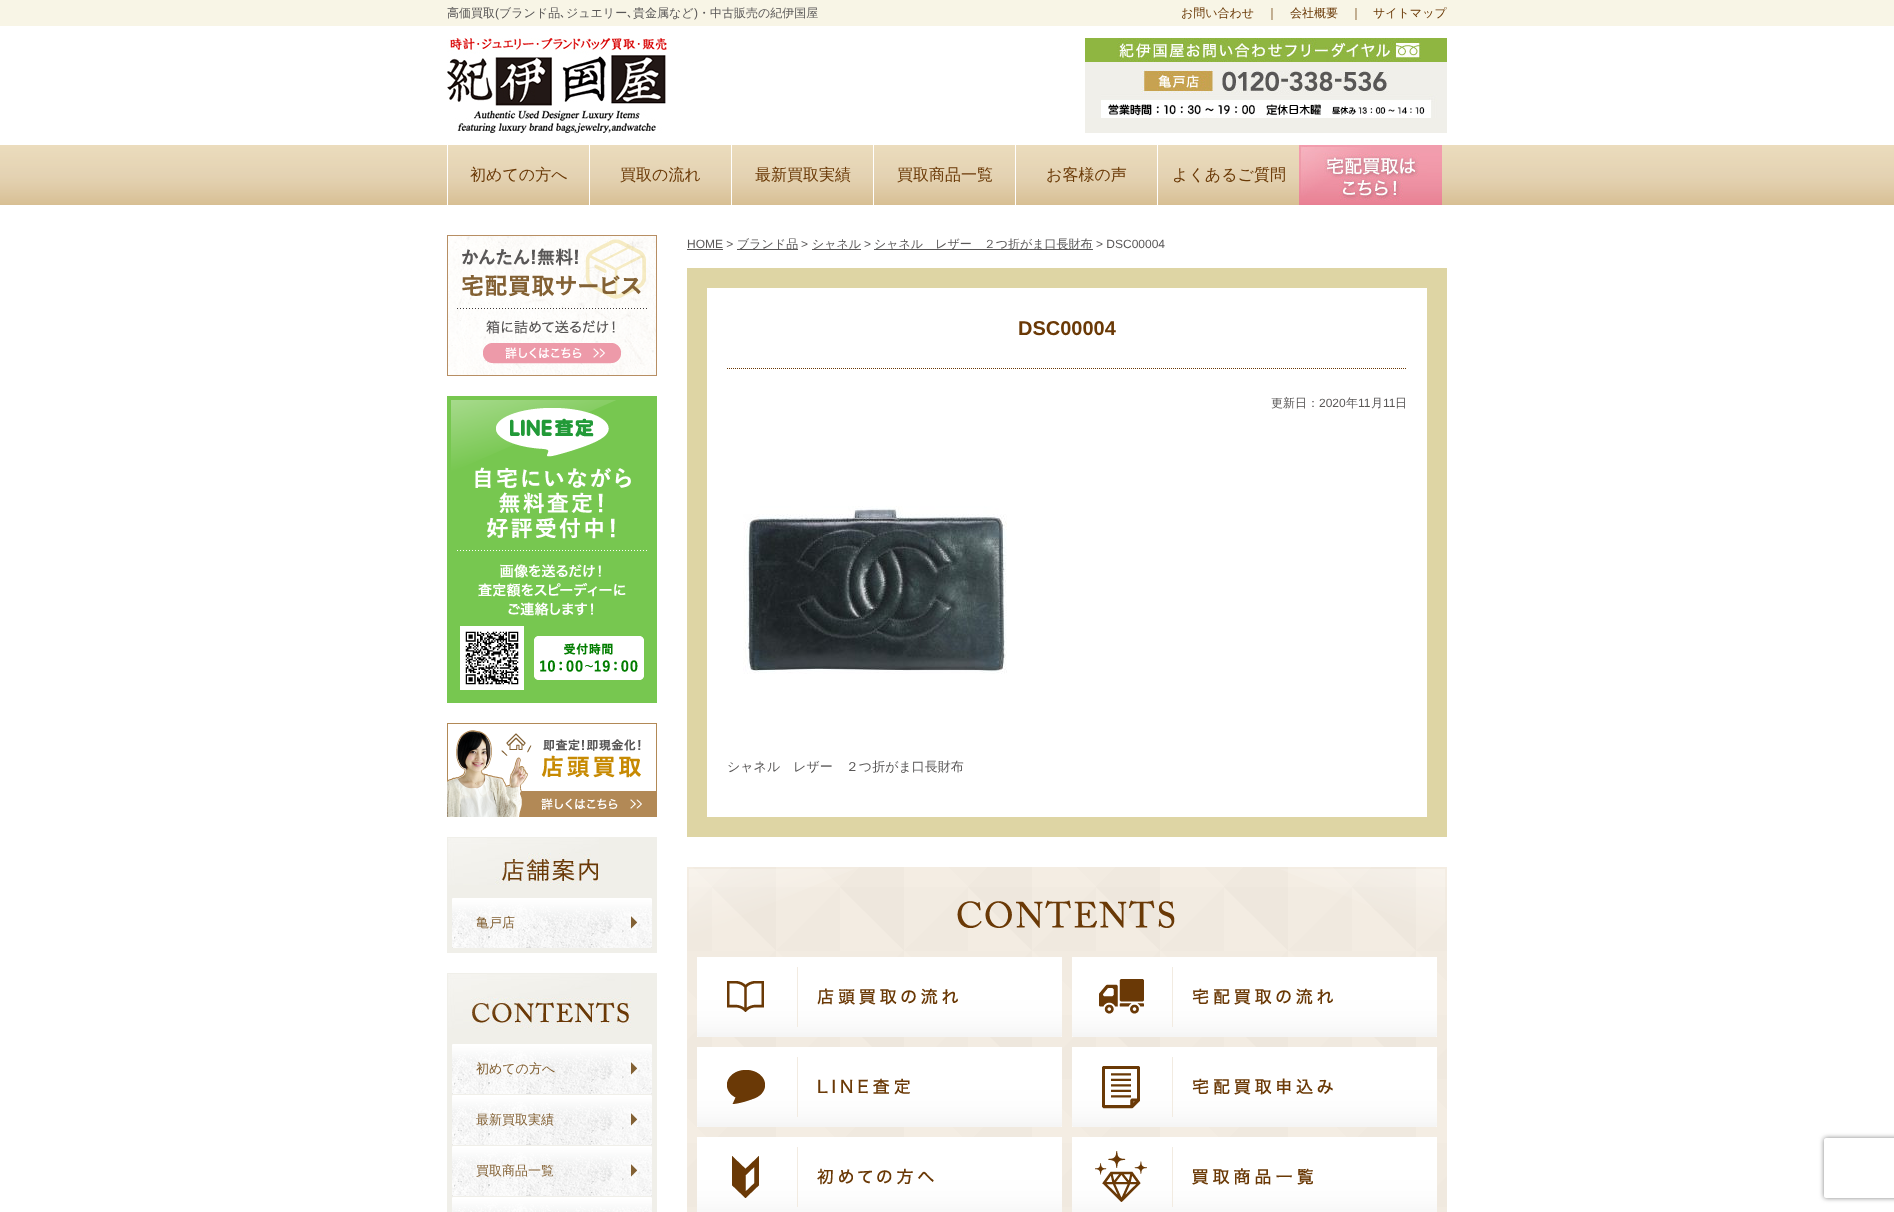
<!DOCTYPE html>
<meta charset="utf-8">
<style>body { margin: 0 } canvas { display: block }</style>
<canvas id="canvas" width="1894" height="1212"></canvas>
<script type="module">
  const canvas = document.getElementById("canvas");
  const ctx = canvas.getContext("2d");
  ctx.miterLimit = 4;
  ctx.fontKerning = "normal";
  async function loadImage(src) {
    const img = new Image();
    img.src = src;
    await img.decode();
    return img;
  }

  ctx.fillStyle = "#ffffff";
  ctx.fillRect(0, 0, 1894, 1212);
  ctx.fillStyle = "#f8f5e6";
  ctx.fillRect(0, 0, 1894, 26);
  ctx.font = "500 12px WenQuanYi Zen Hei";
  ctx.fillStyle = "#595757";
  ctx.fillText("高価買取", 447, 17);
  ctx.font = "12px Liberation Sans";
  ctx.fillText("(", 495, 17);
  ctx.font = "500 12px WenQuanYi Zen Hei";
  ctx.fillText("ブランド品", 499, 17);
  ctx.font = "12px IPAPGothic";
  ctx.fillText("､", 560, 17);
  ctx.font = "500 12px WenQuanYi Zen Hei";
  ctx.fillText("ジュエリー", 566, 17);
  ctx.font = "12px IPAPGothic";
  ctx.fillText("､", 627, 17);
  ctx.font = "500 12px WenQuanYi Zen Hei";
  ctx.fillText("貴金属など", 633, 17);
  ctx.font = "12px Liberation Sans";
  ctx.fillText(")", 694, 17);
  ctx.font = "500 12px WenQuanYi Zen Hei";
  ctx.fillText("・中古販売の紀伊国屋", 698, 17);
  ctx.fillStyle = "#6a3906";
  ctx.fillText("お問い合わせ", 1181, 17);
  ctx.fillText("｜", 1266, 17);
  ctx.fillText("会社概要", 1290, 17);
  ctx.fillText("｜", 1350, 17);
  ctx.fillText("サイトマップ", 1373, 17);
  ctx.drawImage(await loadImage("img1.png"), 447, 38, 220, 95);
  ctx.fillStyle = "#f0efe9";
  ctx.fillRect(1085, 118, 362, 15);
  ctx.drawImage(await loadImage("img2.png"), 1085, 38, 362, 80);
  ctx.drawImage(await loadImage("img3.png"), 0, 145, 1894, 60);
  ctx.fillStyle = "#ffffff";
  ctx.fillRect(447, 145, 1, 60);
  ctx.font = "500 16px WenQuanYi Zen Hei";
  ctx.fillStyle = "#6a3906";
  ctx.fillText("初めての方へ", 470, 180);
  ctx.fillStyle = "#ffffff";
  ctx.fillRect(589, 145, 1, 60);
  ctx.fillStyle = "#6a3906";
  ctx.fillText("買取の流れ", 620, 180);
  ctx.fillStyle = "#ffffff";
  ctx.fillRect(731, 145, 1, 60);
  ctx.fillStyle = "#6a3906";
  ctx.fillText("最新買取実績", 755, 180);
  ctx.fillStyle = "#ffffff";
  ctx.fillRect(873, 145, 1, 60);
  ctx.fillStyle = "#6a3906";
  ctx.fillText("買取商品一覧", 897, 180);
  ctx.fillStyle = "#ffffff";
  ctx.fillRect(1015, 145, 1, 60);
  ctx.fillStyle = "#6a3906";
  ctx.fillText("お客様の声", 1046, 180);
  ctx.fillStyle = "#ffffff";
  ctx.fillRect(1157, 145, 1, 60);
  ctx.fillStyle = "#6a3906";
  ctx.fillText("よくあるご質問", 1172, 180);
  ctx.drawImage(await loadImage("img4.png"), 1299, 145, 143, 60);
  ctx.font = "12px Liberation Sans";
  ctx.fillStyle = "#595757";
  ctx.fillText("HOME >", 687, 248);
  ctx.fillRect(687, 249, 36, 1);
  ctx.fillRect(737, 249, 61, 1);
  ctx.font = "500 12px WenQuanYi Zen Hei";
  ctx.fillText("ブランド品", 737, 248);
  ctx.font = "12px Liberation Sans";
  ctx.fillText(">", 801, 248);
  ctx.fillRect(812, 249, 49, 1);
  ctx.font = "500 12px WenQuanYi Zen Hei";
  ctx.fillText("シャネル", 812, 248);
  ctx.font = "12px Liberation Sans";
  ctx.fillText(">", 864, 248);
  ctx.fillRect(874, 249, 219, 1);
  ctx.font = "500 12px WenQuanYi Zen Hei";
  ctx.fillText("シャネル　レザー　２つ折がま口長財布", 874, 248);
  ctx.font = "12px Liberation Sans";
  ctx.fillText("> DSC00004", 1096, 248);
  ctx.fillStyle = "#ded5a4";
  ctx.fillRect(687, 268, 760, 569);
  ctx.fillStyle = "#ffffff";
  ctx.fillRect(707, 288, 720, 529);
  ctx.beginPath();
  ctx.moveTo(727, 368.5);
  ctx.lineTo(1407, 368.5);
  ctx.strokeStyle = "#6a3906";
  ctx.setLineDash([1, 1]);
  ctx.stroke();
  ctx.font = "bold 20px Liberation Sans";
  ctx.fillStyle = "#6a3906";
  ctx.fillText("DSC00004", 1018, 335);
  ctx.font = "500 12px WenQuanYi Zen Hei";
  ctx.fillStyle = "#595757";
  ctx.fillText("更新日：", 1271, 407);
  ctx.font = "12px Liberation Sans";
  ctx.fillText("2020", 1319, 407);
  ctx.font = "500 12px WenQuanYi Zen Hei";
  ctx.fillText("年", 1346, 407);
  ctx.font = "12px Liberation Sans";
  ctx.fillText("11", 1358, 407);
  ctx.font = "500 12px WenQuanYi Zen Hei";
  ctx.fillText("月", 1371, 407);
  ctx.font = "12px Liberation Sans";
  ctx.fillText("11", 1383, 407);
  ctx.font = "500 12px WenQuanYi Zen Hei";
  ctx.fillText("日", 1395, 407);
  ctx.drawImage(await loadImage("img5.png"), 743, 506, 264, 168);
  ctx.font = "500 13px WenQuanYi Zen Hei";
  ctx.fillText("シャネル　レザー　２つ折がま口長財布", 727, 771);
  ctx.drawImage(await loadImage("img6.png"), 687, 867, 760, 90);
  ctx.drawImage(await loadImage("img7.png"), 687, 957, 760, 255);
  ctx.fillStyle = "#ffffff";
  ctx.fillRect(697, 957, 365, 80);
  ctx.drawImage(await loadImage("img8.png"), 697, 967, 365, 70);
  ctx.fillRect(1072, 957, 365, 80);
  ctx.drawImage(await loadImage("img9.png"), 1072, 967, 365, 70);
  ctx.fillRect(697, 1047, 365, 80);
  ctx.drawImage(await loadImage("img10.png"), 697, 1057, 365, 70);
  ctx.fillRect(1072, 1047, 365, 80);
  ctx.drawImage(await loadImage("img11.png"), 1072, 1057, 365, 70);
  ctx.fillRect(697, 1137, 365, 10);
  ctx.drawImage(await loadImage("img12.png"), 697, 1147, 365, 65);
  ctx.fillRect(1072, 1137, 365, 10);
  ctx.drawImage(await loadImage("img13.png"), 1072, 1147, 365, 65);
  ctx.drawImage(await loadImage("img14.png"), 447, 235, 210, 141);
  ctx.drawImage(await loadImage("img15.png"), 447, 396, 210, 307);
  ctx.drawImage(await loadImage("img16.png"), 447, 723, 210, 94);
  ctx.fillStyle = "#f0efe9";
  ctx.fillRect(447, 837, 210, 116);
  ctx.drawImage(await loadImage("img17.png"), 448, 838, 151, 47);
  ctx.drawImage(await loadImage("img18.png"), 452, 898, 200, 50);
  ctx.fillStyle = "#836134";
  ctx.fillText("亀戸店", 476, 927);
  ctx.fillStyle = "#f0efe9";
  ctx.fillRect(447, 973, 210, 239);
  ctx.drawImage(await loadImage("img19.png"), 448, 974, 183, 55);
  ctx.drawImage(await loadImage("img18.png"), 452, 1044, 200, 50);
  ctx.fillStyle = "#836134";
  ctx.fillText("初めての方へ", 476, 1073);
  ctx.drawImage(await loadImage("img18.png"), 452, 1095, 200, 50);
  ctx.fillText("最新買取実績", 476, 1124);
  ctx.drawImage(await loadImage("img18.png"), 452, 1146, 200, 50);
  ctx.fillText("買取商品一覧", 476, 1175);
  ctx.drawImage(await loadImage("img20.png"), 452, 1197, 200, 15);
  ctx.save();
  ctx.beginPath();
  ctx.moveTo(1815, 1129);
  ctx.lineTo(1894, 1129);
  ctx.lineTo(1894, 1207);
  ctx.lineTo(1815, 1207);
  ctx.closePath();
  ctx.moveTo(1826, 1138);
  ctx.lineTo(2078, 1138);
  ctx.bezierCurveTo(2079, 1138, 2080, 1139, 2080, 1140);
  ctx.lineTo(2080, 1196);
  ctx.bezierCurveTo(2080, 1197, 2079, 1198, 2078, 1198);
  ctx.lineTo(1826, 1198);
  ctx.bezierCurveTo(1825, 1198, 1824, 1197, 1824, 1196);
  ctx.lineTo(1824, 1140);
  ctx.bezierCurveTo(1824, 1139, 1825, 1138, 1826, 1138);
  ctx.closePath();
  ctx.clip("evenodd");
  ctx.fillStyle = "#808080";
  ctx.filter = "blur(2.5px)";
  ctx.beginPath();
  ctx.roundRect(1824, 1138, 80, 60, 2);
  ctx.fill();
  ctx.filter = "none";
  ctx.restore();
</script>
